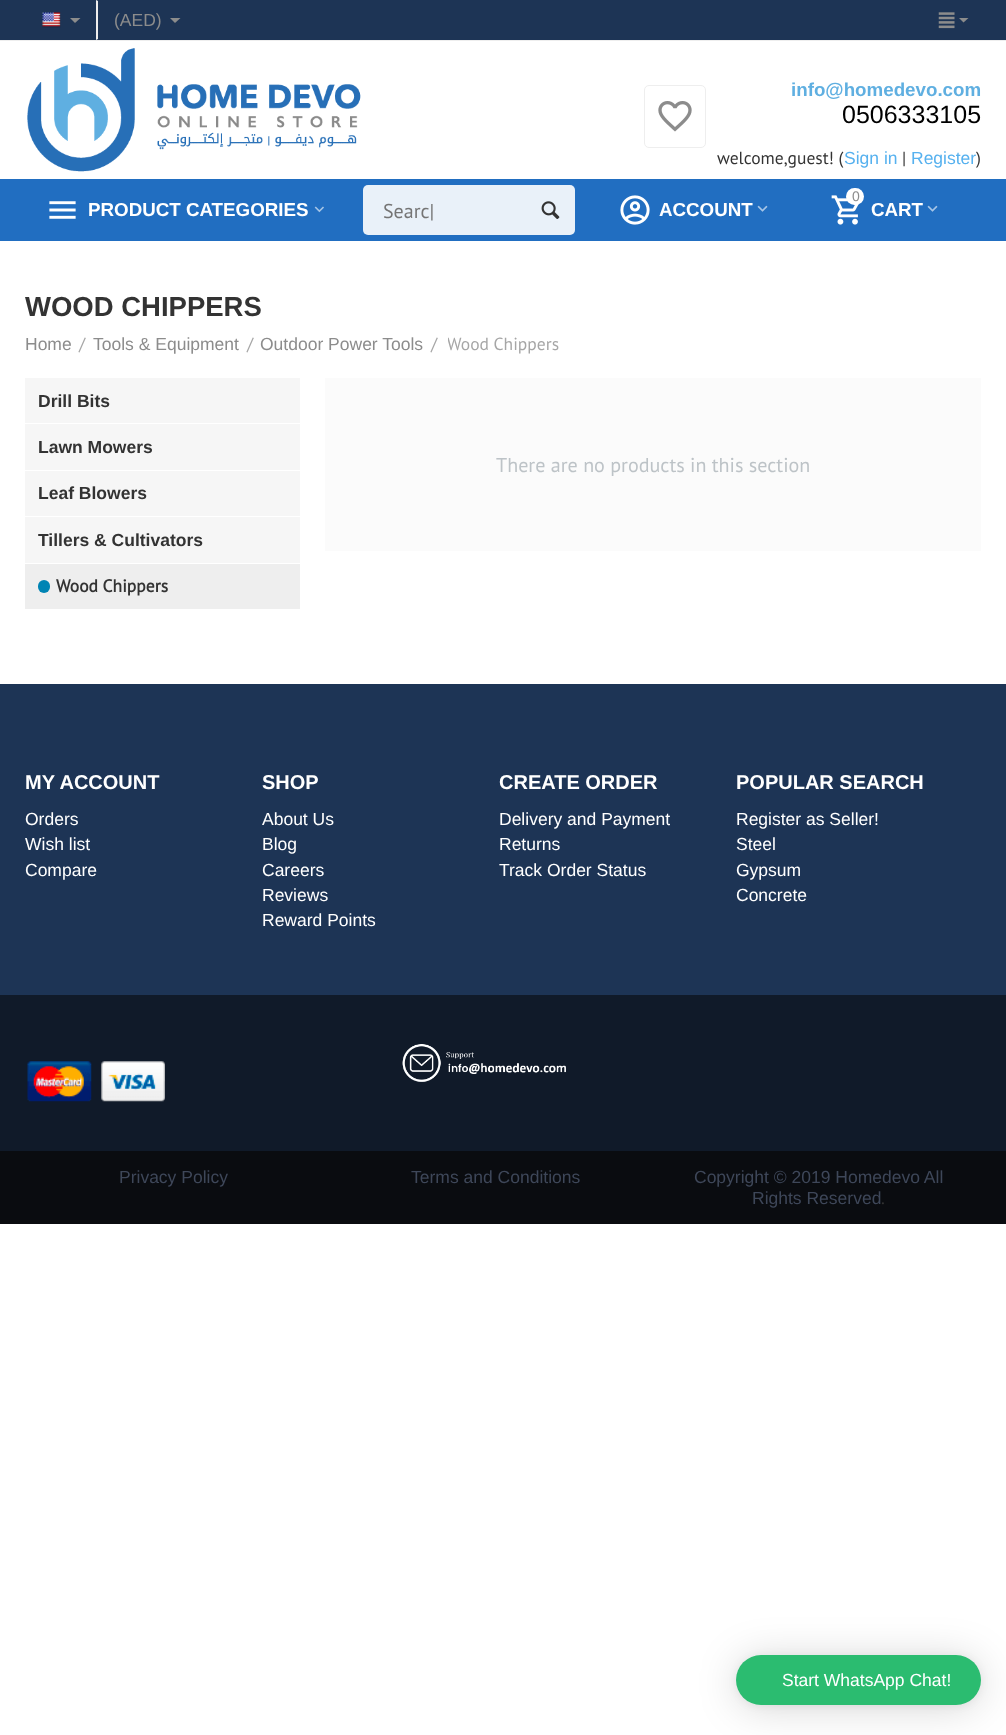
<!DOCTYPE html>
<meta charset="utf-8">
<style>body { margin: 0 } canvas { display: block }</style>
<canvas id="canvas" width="1006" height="1735"></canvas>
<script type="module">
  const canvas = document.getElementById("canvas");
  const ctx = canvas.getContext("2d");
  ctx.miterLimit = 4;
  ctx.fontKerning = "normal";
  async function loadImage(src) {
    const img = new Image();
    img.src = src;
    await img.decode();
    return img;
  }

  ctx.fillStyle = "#ffffff";
  ctx.fillRect(0, 0, 1006, 1735);
  ctx.fillStyle = "#1d3455";
  ctx.fillRect(0, 0, 1006, 40);
  ctx.fillStyle = "#eeeeee";
  ctx.fillRect(0, 40, 1006, 1);
  ctx.drawImage(await loadImage("img1.png"), 42, 12, 19, 16);
  ctx.fillStyle = "#8c8c8c";
  ctx.beginPath();
  ctx.moveTo(75, 23);
  ctx.lineTo(70, 18);
  ctx.lineTo(80.5, 18);
  ctx.closePath();
  ctx.fill();
  ctx.fillStyle = "#eeeeee";
  ctx.beginPath();
  ctx.moveTo(96, 40);
  ctx.lineTo(96, 0);
  ctx.lineTo(98, 1);
  ctx.lineTo(98, 39);
  ctx.closePath();
  ctx.fill();
  ctx.font = "17.5px Liberation Sans";
  ctx.fillStyle = "#8c8c8c";
  ctx.fillText("(AED)", 114, 26);
  ctx.beginPath();
  ctx.moveTo(175, 23);
  ctx.lineTo(170, 18);
  ctx.lineTo(180.5, 18);
  ctx.closePath();
  ctx.fill();
  ctx.drawImage(await loadImage("img2.png"), 938, 12, 17, 17);
  ctx.beginPath();
  ctx.moveTo(963.5, 22.5);
  ctx.lineTo(959, 18);
  ctx.lineTo(968.5, 18);
  ctx.closePath();
  ctx.fill();
  ctx.drawImage(await loadImage("img3.png"), 27, 48, 334, 124);
  ctx.beginPath();
  ctx.roundRect(644.5, 85.5, 61, 62, 4.5);
  ctx.strokeStyle = "#eeeeee";
  ctx.stroke();
  ctx.drawImage(await loadImage("img4.png"), 658, 101, 34, 31);
  ctx.font = "bold 18.75px Liberation Sans";
  ctx.fillStyle = "#5fafe1";
  ctx.fillText("info@homedevo.com", 791, 96);
  ctx.font = "25px Liberation Sans";
  ctx.fillStyle = "#000000";
  ctx.fillText("0506333105", 842, 123);
  ctx.font = "17.5px PT Sans";
  ctx.fillStyle = "#333333";
  ctx.fillText("welcome,guest! (", 717, 164);
  ctx.font = "17.5px Liberation Sans";
  ctx.fillStyle = "#56b1ef";
  ctx.fillText("Sign in", 844, 164);
  ctx.font = "17.5px PT Sans";
  ctx.fillStyle = "#333333";
  ctx.fillText("|", 902, 164);
  ctx.font = "17.5px Liberation Sans";
  ctx.fillStyle = "#56b1ef";
  ctx.fillText("Register", 911, 164);
  ctx.font = "17.5px PT Sans";
  ctx.fillStyle = "#333333";
  ctx.fillText(")", 976, 164);
  ctx.fillStyle = "#216ec1";
  ctx.fillRect(0, 179, 1006, 62);
  ctx.drawImage(await loadImage("img5.png"), 49, 201, 27, 18);
  ctx.font = "bold 18.75px Liberation Sans";
  ctx.fillStyle = "#ffffff";
  ctx.fillText("PRODUCT CATEGORIES", 88, 216);
  ctx.drawImage(await loadImage("img6.png"), 314, 206, 10, 7);
  ctx.fillStyle = "#e9f1f9";
  ctx.beginPath();
  ctx.roundRect(363, 185, 212, 50, 5);
  ctx.fill();
  ctx.font = "20px PT Sans";
  ctx.fillStyle = "#757575";
  ctx.fillText("Searc|", 383, 218);
  ctx.drawImage(await loadImage("img7.png"), 541, 201, 19, 18);
  ctx.drawImage(await loadImage("img8.png"), 620, 195, 30, 30);
  ctx.font = "bold 18.75px Liberation Sans";
  ctx.fillStyle = "#ffffff";
  ctx.fillText("ACCOUNT", 659, 216);
  ctx.drawImage(await loadImage("img9.png"), 757, 205, 11, 7);
  ctx.drawImage(await loadImage("img10.png"), 831, 195, 29, 30);
  ctx.beginPath();
  ctx.roundRect(846, 188, 18, 17, 8.5);
  ctx.fill();
  ctx.font = "14px Liberation Sans";
  ctx.fillStyle = "#8c8c8c";
  ctx.fillText("0", 852, 201);
  ctx.font = "bold 18.75px Liberation Sans";
  ctx.fillStyle = "#ffffff";
  ctx.fillText("CART", 871, 216);
  ctx.drawImage(await loadImage("img9.png"), 927, 205, 11, 7);
  ctx.font = "bold 27.5px Liberation Sans";
  ctx.fillStyle = "#333333";
  ctx.fillText("WOOD CHIPPERS", 25, 316);
  ctx.font = "17.5px Liberation Sans";
  ctx.fillStyle = "#8c8c8c";
  ctx.fillText("Home", 25, 350);
  ctx.font = "17.5px PT Sans";
  ctx.fillStyle = "#a6a6a6";
  ctx.fillText("/", 79, 350);
  ctx.font = "17.5px Liberation Sans";
  ctx.fillStyle = "#8c8c8c";
  ctx.fillText("Tools & Equipment", 93, 350);
  ctx.font = "17.5px PT Sans";
  ctx.fillStyle = "#a6a6a6";
  ctx.fillText("/", 247, 350);
  ctx.font = "17.5px Liberation Sans";
  ctx.fillStyle = "#8c8c8c";
  ctx.fillText("Outdoor Power Tools", 260, 350);
  ctx.font = "17.5px PT Sans";
  ctx.fillStyle = "#a6a6a6";
  ctx.fillText("/", 431, 350);
  ctx.save();
  ctx.beginPath();
  ctx.rect(448, 334, 111, 20);
  ctx.clip();
  ctx.fillText("Wood Chippers", 447, 350);
  ctx.restore();
  ctx.fillStyle = "#f6f6f6";
  ctx.fillRect(25, 378, 275, 185);
  ctx.fillStyle = "#ffffff";
  ctx.fillRect(25, 423, 275, 1);
  ctx.font = "bold 17.5px Liberation Sans";
  ctx.fillStyle = "#333333";
  ctx.fillText("Drill Bits", 38, 407);
  ctx.fillStyle = "#ffffff";
  ctx.fillRect(25, 470, 275, 1);
  ctx.fillStyle = "#333333";
  ctx.fillText("Lawn Mowers", 38, 453);
  ctx.fillStyle = "#ffffff";
  ctx.fillRect(25, 516, 275, 1);
  ctx.fillStyle = "#333333";
  ctx.fillText("Leaf Blowers", 38, 499);
  ctx.fillText("Tillers & Cultivators", 38, 546);
  ctx.fillStyle = "#eeeeee";
  ctx.fillRect(25, 564, 275, 45);
  ctx.fillStyle = "#0084b4";
  ctx.beginPath();
  ctx.roundRect(38, 580, 12, 13, 6);
  ctx.fill();
  ctx.font = "bold 17.5px PT Sans";
  ctx.fillStyle = "#333333";
  ctx.fillText("Wood Chippers", 56, 592);
  ctx.fillStyle = "#fbfbfb";
  ctx.fillRect(325, 378, 656, 173);
  ctx.font = "20.1px PT Sans";
  ctx.fillStyle = "#bdc3c7";
  ctx.fillText("There are no products in this section", 496, 472);
  ctx.fillStyle = "#1d3455";
  ctx.fillRect(0, 684, 1006, 311);
  ctx.font = "bold 20px Liberation Sans";
  ctx.fillStyle = "#ffffff";
  ctx.fillText("MY ACCOUNT", 25, 789);
  ctx.font = "17.5px Liberation Sans";
  ctx.fillText("Orders", 25, 825);
  ctx.fillText("Wish list", 25, 850);
  ctx.fillText("Compare", 25, 876);
  ctx.font = "bold 20px Liberation Sans";
  ctx.fillText("SHOP", 262, 789);
  ctx.font = "17.5px Liberation Sans";
  ctx.fillText("About Us", 262, 825);
  ctx.fillText("Blog", 262, 850);
  ctx.fillText("Careers", 262, 876);
  ctx.fillText("Reviews", 262, 901);
  ctx.fillText("Reward Points", 262, 926);
  ctx.font = "bold 20px Liberation Sans";
  ctx.fillText("CREATE ORDER", 499, 789);
  ctx.font = "17.5px Liberation Sans";
  ctx.fillText("Delivery and Payment", 499, 825);
  ctx.fillText("Returns", 499, 850);
  ctx.fillText("Track Order Status", 499, 876);
  ctx.font = "bold 20px Liberation Sans";
  ctx.fillText("POPULAR SEARCH", 736, 789);
  ctx.font = "17.5px Liberation Sans";
  ctx.fillText("Register as Seller!", 736, 825);
  ctx.fillText("Steel", 736, 850);
  ctx.fillText("Gypsum", 736, 876);
  ctx.fillText("Concrete", 736, 901);
  ctx.fillStyle = "#0a0c10";
  ctx.fillRect(0, 1151, 1006, 73);
  ctx.fillStyle = "#3e4759";
  ctx.fillText("Privacy Policy", 119, 1183);
  ctx.fillText("Terms and Conditions", 411, 1183);
  ctx.fillText("Copyright © 2019 Homedevo All", 694, 1183);
  ctx.fillText("Rights Reserved", 752, 1204);
  ctx.font = "17.5px PT Sans";
  ctx.fillStyle = "#333333";
  ctx.fillText(".", 881, 1204);
  ctx.fillStyle = "#101a29";
  ctx.fillRect(0, 995, 1006, 156);
  ctx.drawImage(await loadImage("img11.png"), 27, 1061, 65, 41);
  ctx.drawImage(await loadImage("img12.png"), 101, 1061, 64, 41);
  ctx.drawImage(await loadImage("img13.png"), 402, 1044, 164, 38);
  ctx.fillStyle = "rgba(0, 0, 0, 0.16)";
  ctx.filter = "blur(20px)";
  ctx.beginPath();
  ctx.roundRect(736, 1658, 245, 50, 25);
  ctx.fill();
  ctx.filter = "none";
  ctx.fillStyle = "rgba(0, 0, 0, 0.06)";
  ctx.filter = "blur(4px)";
  ctx.beginPath();
  ctx.roundRect(736, 1656, 245, 50, 25);
  ctx.fill();
  ctx.filter = "none";
  ctx.fillStyle = "#2bbc70";
  ctx.beginPath();
  ctx.roundRect(736, 1655, 245, 50, 25);
  ctx.fill();
  ctx.font = "17.5px Liberation Sans";
  ctx.fillStyle = "#ffffff";
  ctx.fillText("Start WhatsApp Chat!", 782, 1686);
</script>
